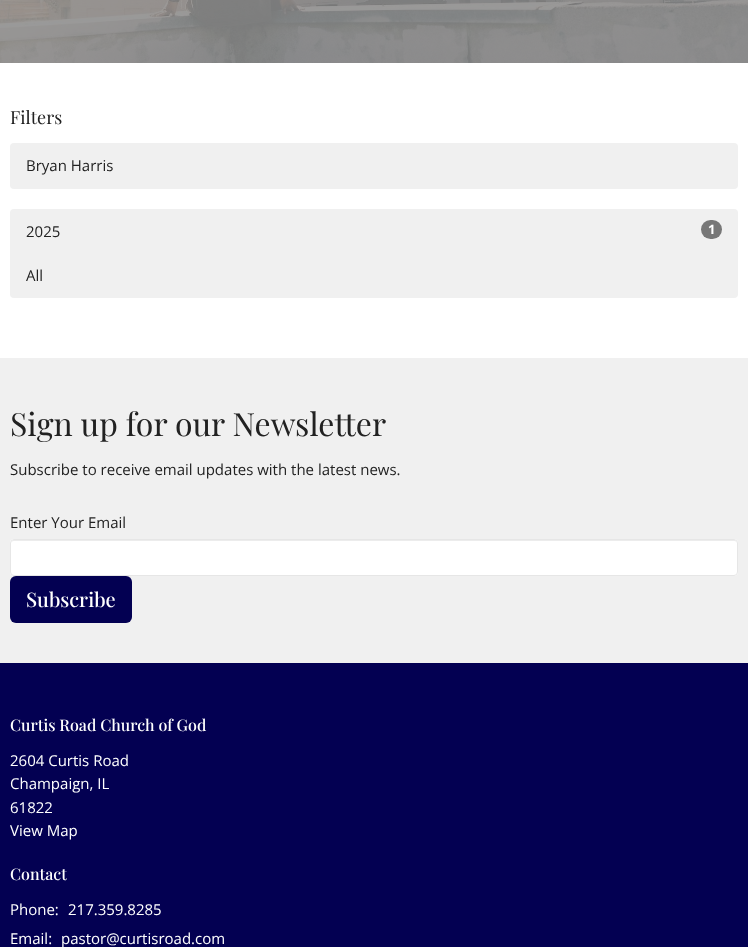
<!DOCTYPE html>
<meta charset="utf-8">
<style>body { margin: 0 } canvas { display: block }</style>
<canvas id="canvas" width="748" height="947"></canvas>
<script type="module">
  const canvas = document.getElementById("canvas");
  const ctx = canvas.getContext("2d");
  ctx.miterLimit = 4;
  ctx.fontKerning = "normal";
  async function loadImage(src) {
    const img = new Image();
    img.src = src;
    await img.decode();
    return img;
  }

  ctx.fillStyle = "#ffffff";
  ctx.fillRect(0, 0, 748, 947);
  ctx.drawImage(await loadImage("img1.png"), 0, 0, 748, 63);
  ctx.font = "18px Playfair Display";
  ctx.fillStyle = "#222222";
  ctx.fillText("Filters", 10, 124);
  ctx.fillStyle = "#f0f0f0";
  ctx.beginPath();
  ctx.roundRect(10, 143, 728, 46, 4);
  ctx.fill();
  ctx.font = "15px Open Sans";
  ctx.fillStyle = "#222222";
  ctx.fillText("Bryan Harris", 26, 171);
  ctx.fillStyle = "#f0f0f0";
  ctx.beginPath();
  ctx.roundRect(10, 209, 728, 45, [4, 4, 0, 0]);
  ctx.fill();
  ctx.fillStyle = "#222222";
  ctx.fillText("2025", 26, 237);
  ctx.fillStyle = "#777777";
  ctx.beginPath();
  ctx.roundRect(701, 220, 21, 19, 9.5);
  ctx.fill();
  ctx.font = "bold 13px Open Sans";
  ctx.fillStyle = "#ffffff";
  ctx.fillText("1", 708, 234);
  ctx.fillStyle = "#f0f0f0";
  ctx.beginPath();
  ctx.roundRect(10, 253, 728, 45, [0, 0, 4, 4]);
  ctx.fill();
  ctx.font = "15px Open Sans";
  ctx.fillStyle = "#222222";
  ctx.fillText("All", 26, 281);
  ctx.fillStyle = "#f0f0f0";
  ctx.fillRect(0, 358, 748, 305);
  ctx.font = "32px Playfair Display";
  ctx.fillStyle = "#222222";
  ctx.fillText("Sign up for our Newsletter", 10, 436);
  ctx.font = "15px Open Sans";
  ctx.fillText("Subscribe to receive email updates with the latest news.", 10, 475);
  ctx.fillText("Enter Your Email", 10, 528);
  ctx.fillStyle = "#ffffff";
  ctx.beginPath();
  ctx.roundRect(10, 539, 728, 37, 4);
  ctx.fill();
  ctx.fillStyle = "#ececec";
  ctx.beginPath();
  ctx.moveTo(14, 541);
  ctx.lineTo(734, 541);
  ctx.bezierCurveTo(736, 541, 737, 542, 737, 544);
  ctx.bezierCurveTo(737, 542, 736, 540, 734, 540);
  ctx.lineTo(14, 540);
  ctx.bezierCurveTo(12, 540, 11, 542, 11, 544);
  ctx.bezierCurveTo(11, 542, 12, 541, 14, 541);
  ctx.closePath();
  ctx.fill();
  ctx.beginPath();
  ctx.roundRect(10.5, 539.5, 727, 36, 3.5);
  ctx.strokeStyle = "#e6e6e6";
  ctx.stroke();
  ctx.fillStyle = "#030052";
  ctx.beginPath();
  ctx.roundRect(10, 576, 122, 47, 6);
  ctx.fill();
  ctx.font = "500 20px Playfair Display";
  ctx.fillStyle = "#ffffff";
  ctx.fillText("Subscribe", 26, 607);
  ctx.fillStyle = "#030052";
  ctx.fillRect(0, 663, 748, 284);
  ctx.font = "500 16px Playfair Display";
  ctx.fillStyle = "#ffffff";
  ctx.fillText("Curtis Road Church of God", 10, 731);
  ctx.font = "15px Open Sans";
  ctx.fillText("2604 Curtis Road", 10, 766);
  ctx.fillText("Champaign, IL", 10, 789);
  ctx.fillText("61822", 10, 813);
  ctx.fillText("View Map", 10, 836);
  ctx.font = "500 16px Playfair Display";
  ctx.fillText("Contact", 10, 880);
  ctx.font = "15px Open Sans";
  ctx.fillText("Phone:", 10, 915);
  ctx.fillText("217.359.8285", 68, 915);
  ctx.fillText("Email:", 10, 944);
  ctx.fillText("pastor@curtisroad.com", 61, 944);
</script>
